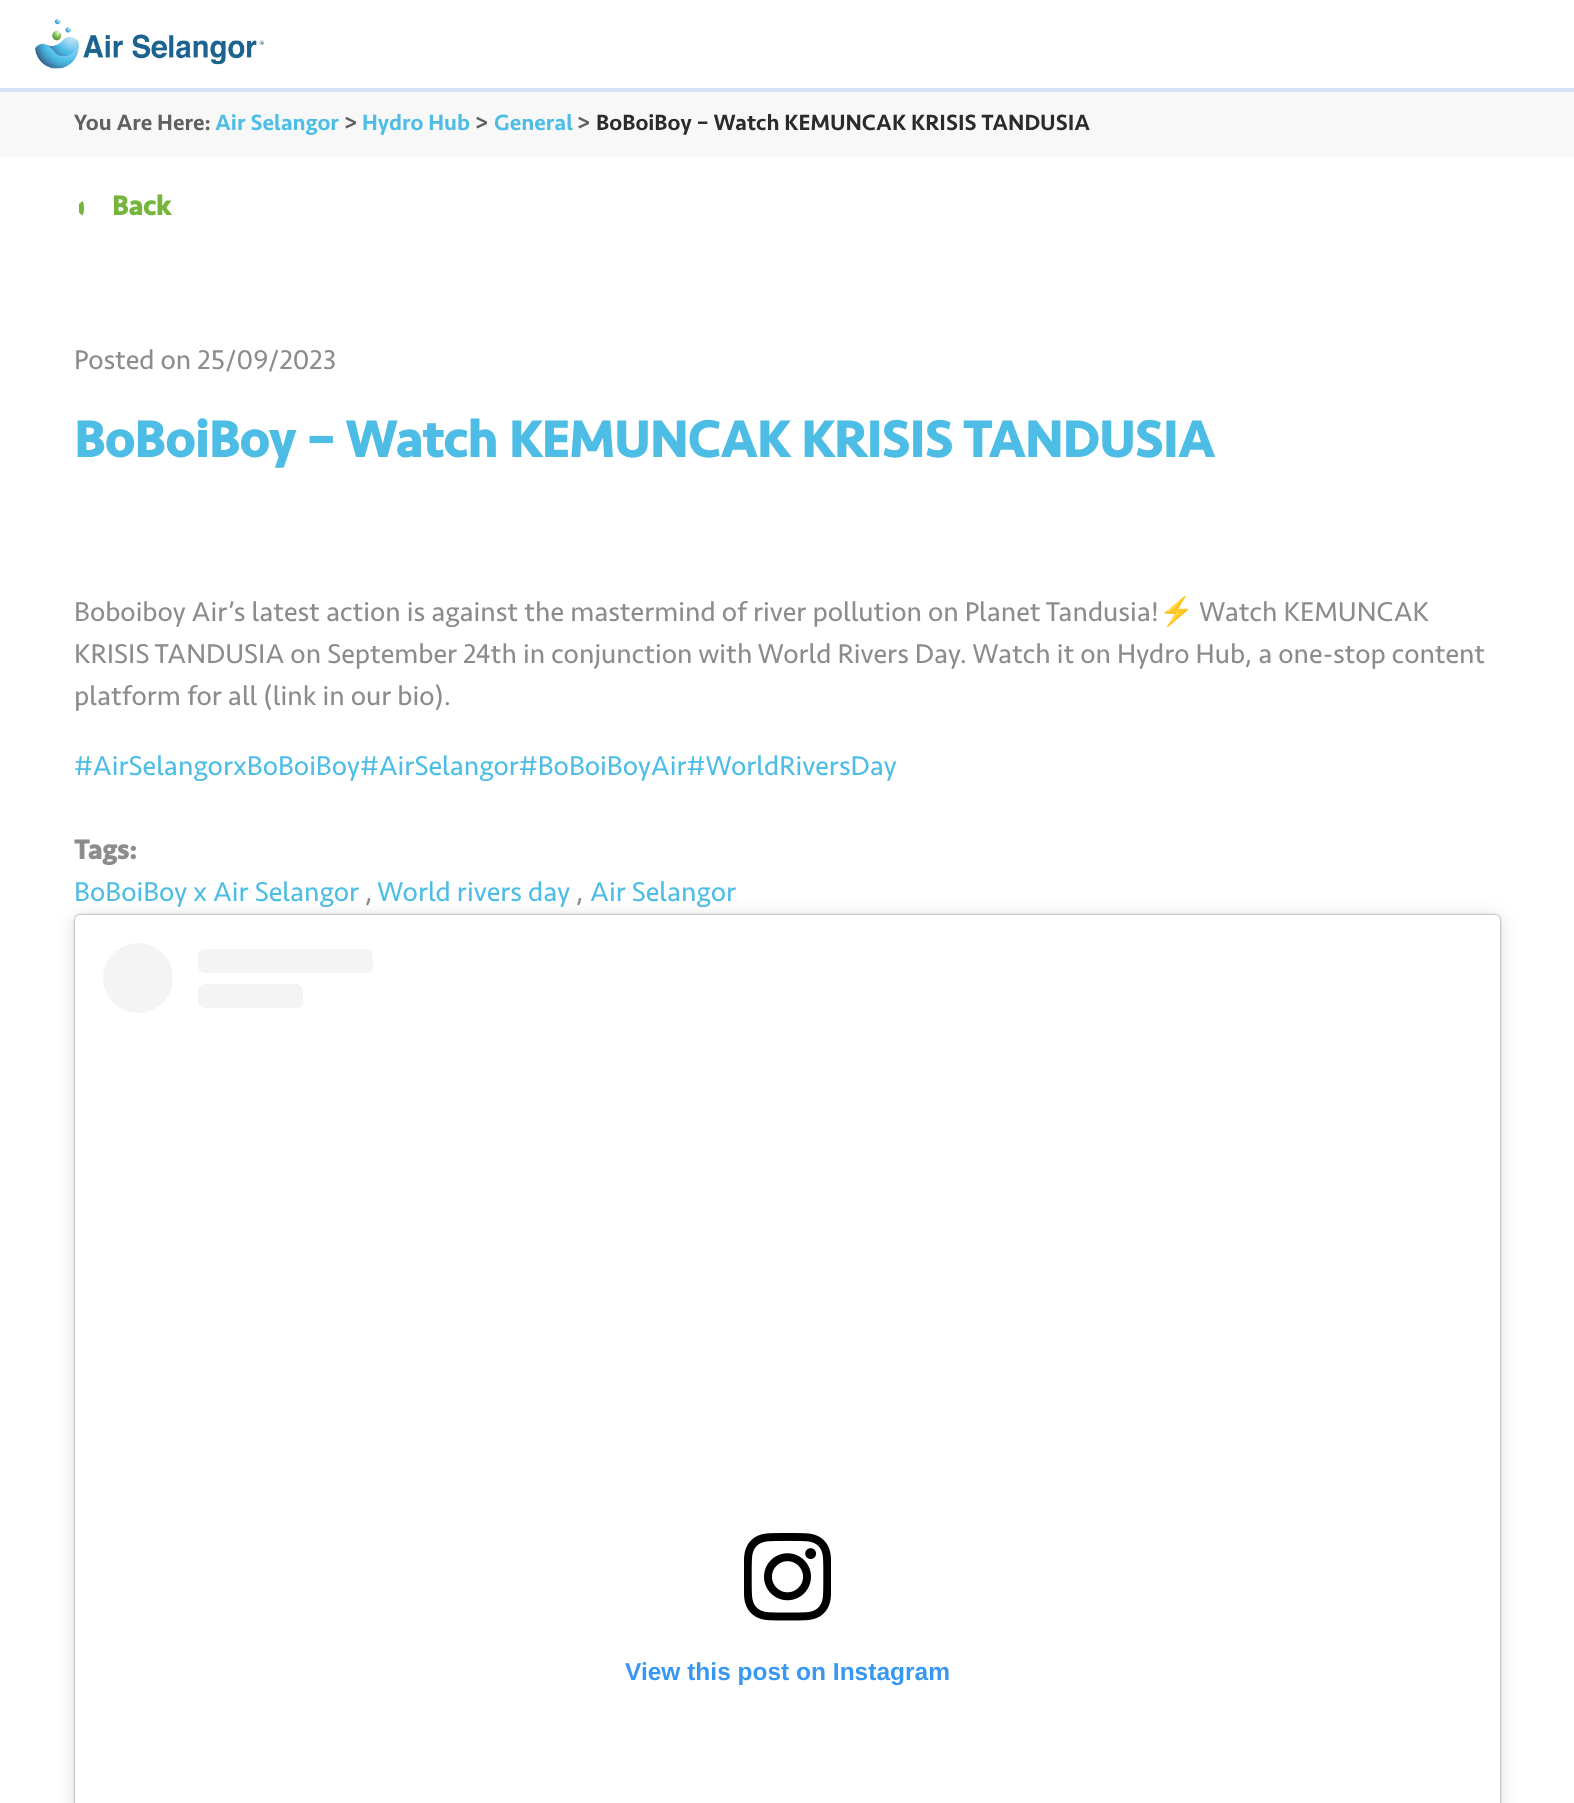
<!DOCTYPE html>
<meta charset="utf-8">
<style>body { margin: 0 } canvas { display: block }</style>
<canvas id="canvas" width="1574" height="1803"></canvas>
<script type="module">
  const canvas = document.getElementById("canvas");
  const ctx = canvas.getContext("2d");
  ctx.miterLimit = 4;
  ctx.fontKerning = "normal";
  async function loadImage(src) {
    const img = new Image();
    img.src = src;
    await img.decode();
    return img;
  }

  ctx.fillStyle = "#ffffff";
  ctx.fillRect(0, 0, 1574, 1803);
  ctx.fillStyle = "#d6e2f5";
  ctx.fillRect(0, 88, 1574, 4);
  ctx.drawImage(await loadImage("img1.png"), 35, 19, 229, 50);
  ctx.fillStyle = "#f8f8f8";
  ctx.fillRect(0, 92, 1574, 66);
  ctx.font = "500 22.75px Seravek";
  ctx.fillStyle = "#606060";
  ctx.fillText("You Are Here:", 74, 130);
  ctx.fillStyle = "#4ebde5";
  ctx.fillText("Air Selangor", 215, 130);
  ctx.fillStyle = "#606060";
  ctx.fillText(">", 344, 130);
  ctx.fillStyle = "#4ebde5";
  ctx.fillText("Hydro Hub", 362, 130);
  ctx.fillStyle = "#606060";
  ctx.fillText(">", 475, 130);
  ctx.fillStyle = "#4ebde5";
  ctx.fillText("General", 494, 130);
  ctx.fillStyle = "#606060";
  ctx.fillText(">", 577, 130);
  ctx.fillStyle = "#2b2b2b";
  ctx.fillText("BoBoiBoy – Watch KEMUNCAK KRISIS TANDUSIA", 596, 130);
  ctx.fillStyle = "#76b53b";
  ctx.beginPath();
  ctx.moveTo(82.5, 201);
  ctx.bezierCurveTo(84.5, 203.5, 84.5, 213, 82.5, 215.5);
  ctx.lineTo(79, 212.5);
  ctx.lineTo(79, 204);
  ctx.closePath();
  ctx.fill();
  ctx.font = "bold 28px Seravek";
  ctx.fillText("Back", 112, 215);
  ctx.font = "28px Seravek";
  ctx.fillStyle = "#8c8c8c";
  ctx.fillText("Posted on 25/09/2023", 74, 369);
  ctx.font = "bold 52.5px Seravek";
  ctx.fillStyle = "#4ebde5";
  ctx.fillText("BoBoiBoy – Watch KEMUNCAK KRISIS TANDUSIA", 74, 457);
  ctx.font = "28px Seravek";
  ctx.fillStyle = "#8c8c8c";
  ctx.fillText("Boboiboy Air’s latest action is against the mastermind of river pollution on Planet Tandusia!", 74, 621);
  ctx.font = "28px Noto Color Emoji";
  ctx.fillText("⚡", 1159, 621);
  ctx.font = "28px Seravek";
  ctx.fillText("Watch KEMUNCAK", 1199, 621);
  ctx.fillText("KRISIS TANDUSIA on September 24th in conjunction with World Rivers Day. Watch it on Hydro Hub, a one-stop content", 74, 663);
  ctx.fillText("platform for all (link in our bio).", 74, 705);
  ctx.fillStyle = "#4ebde5";
  ctx.fillText("#AirSelangorxBoBoiBoy#AirSelangor#BoBoiBoyAir#WorldRiversDay", 74, 775);
  ctx.font = "bold 28px Seravek";
  ctx.fillStyle = "#8c8c8c";
  ctx.fillText("Tags:", 74, 859);
  ctx.font = "28px Seravek";
  ctx.fillStyle = "#4ebde5";
  ctx.fillText("BoBoiBoy x Air Selangor", 74, 901);
  ctx.fillStyle = "#8c8c8c";
  ctx.fillText(",", 365, 901);
  ctx.fillStyle = "#4ebde5";
  ctx.fillText("World rivers day", 377, 901);
  ctx.fillStyle = "#8c8c8c";
  ctx.fillText(",", 576, 901);
  ctx.fillStyle = "#4ebde5";
  ctx.fillText("Air Selangor", 590, 901);
  ctx.fillStyle = "rgba(0, 0, 0, 0.15)";
  ctx.filter = "blur(9px)";
  ctx.beginPath();
  ctx.roundRect(75, 917, 1425, 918, 5);
  ctx.fill();
  ctx.filter = "none";
  ctx.fillStyle = "rgba(0, 0, 0, 0.5)";
  ctx.filter = "blur(1px)";
  ctx.beginPath();
  ctx.roundRect(75, 915, 1425, 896, 5);
  ctx.fill();
  ctx.filter = "none";
  ctx.fillStyle = "#ffffff";
  ctx.beginPath();
  ctx.roundRect(75, 915, 1425, 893, 5);
  ctx.fill();
  ctx.fillStyle = "#f4f4f4";
  ctx.beginPath();
  ctx.arc(138, 978, 35, 0, Math.PI * 2);
  ctx.fill();
  ctx.beginPath();
  ctx.roundRect(198, 949, 175, 24, 7);
  ctx.fill();
  ctx.beginPath();
  ctx.roundRect(198, 984, 105, 24, 7);
  ctx.fill();
  ctx.drawImage(await loadImage("img2.png"), 744, 1533, 87, 88);
  ctx.font = "bold 24.5px Liberation Sans";
  ctx.fillStyle = "#3897f0";
  ctx.fillText("View this post on Instagram", 625, 1680);
</script>
